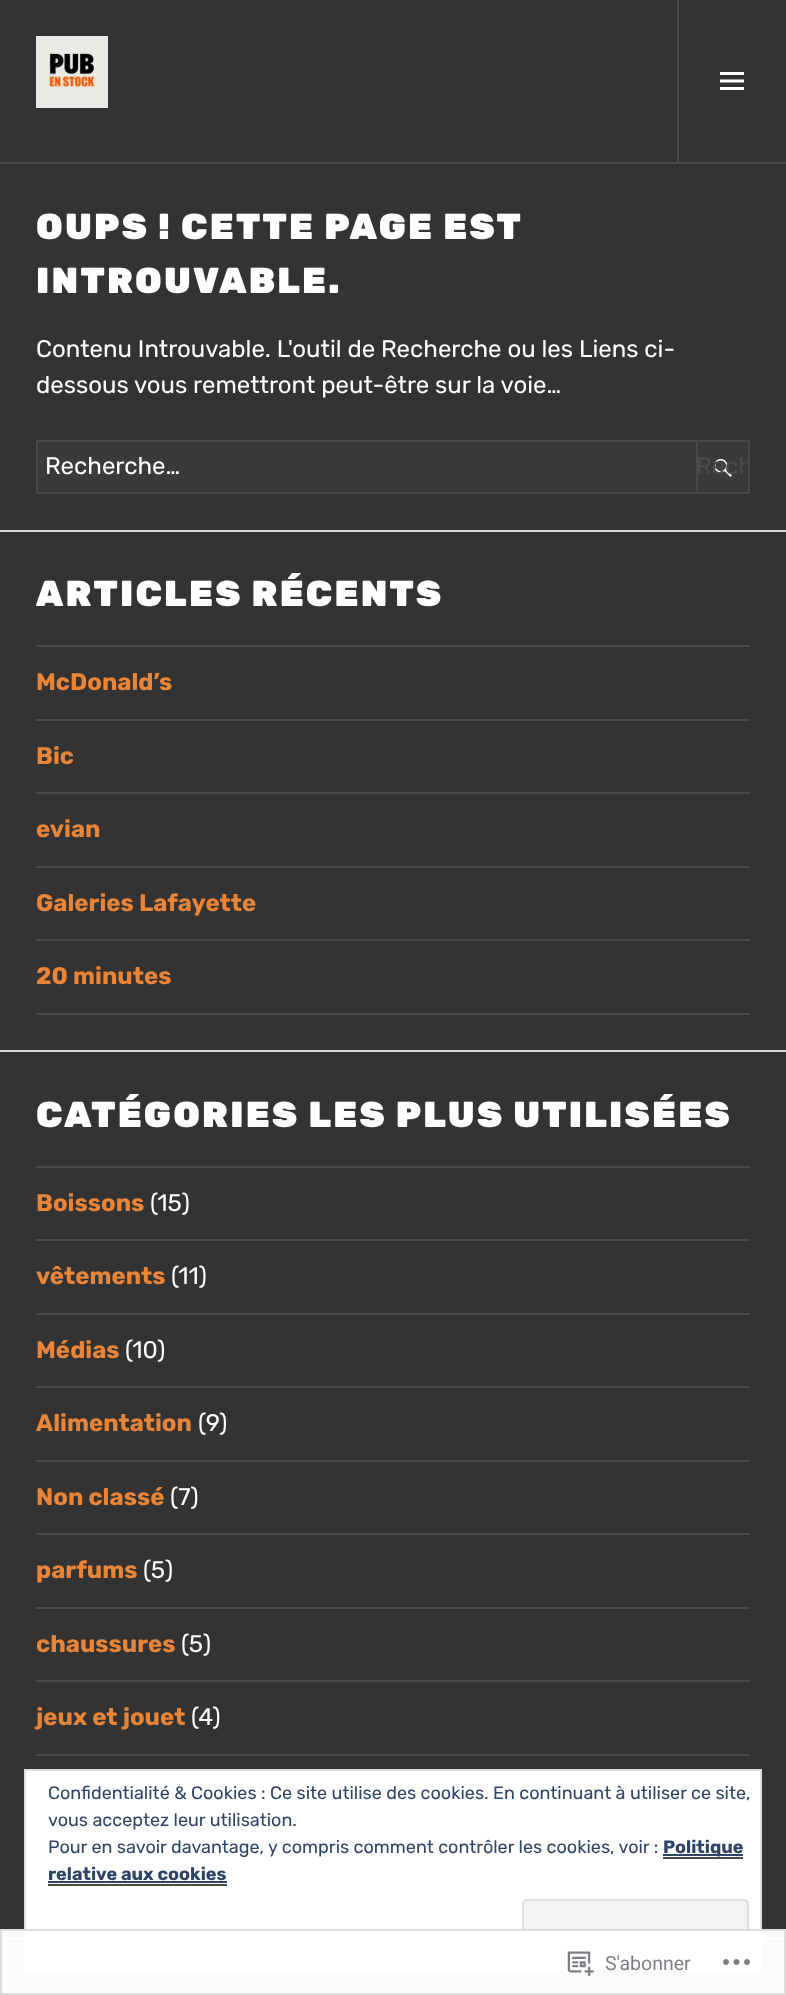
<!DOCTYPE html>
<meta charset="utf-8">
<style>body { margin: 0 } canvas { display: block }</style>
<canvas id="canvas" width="786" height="1995"></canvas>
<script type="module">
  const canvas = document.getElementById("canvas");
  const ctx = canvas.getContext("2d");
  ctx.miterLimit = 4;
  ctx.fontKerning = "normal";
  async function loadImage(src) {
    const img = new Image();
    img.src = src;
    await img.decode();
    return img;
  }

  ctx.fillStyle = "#333333";
  ctx.fillRect(0, 0, 786, 1995);
  ctx.fillStyle = "#494949";
  ctx.fillRect(0, 162, 786, 2);
  ctx.drawImage(await loadImage("img1.png"), 36, 36, 72, 72);
  ctx.fillRect(677, 0, 2, 162);
  ctx.drawImage(await loadImage("img2.png"), 720, 72, 24, 18);
  ctx.letterSpacing = "2.25px";
  ctx.font = "900 36px Rubik";
  ctx.fillStyle = "#ffffff";
  ctx.fillText("OUPS ! CETTE PAGE EST", 36, 239);
  ctx.fillText("INTROUVABLE.", 36, 293);
  ctx.letterSpacing = "0px";
  ctx.font = "24px Rubik";
  ctx.fillText("Contenu Introuvable. L'outil de Recherche ou les Liens ci-", 36, 357);
  ctx.fillText("dessous vous remettront peut-être sur la voie…", 36, 393);
  ctx.fillStyle = "#3a3a3a";
  ctx.fillRect(38, 442, 658, 50);
  ctx.strokeStyle = "#494949";
  ctx.lineWidth = 2;
  ctx.strokeRect(37, 441, 712, 52);
  ctx.fillStyle = "#ffffff";
  ctx.fillText("Recherche…", 45, 474);
  ctx.fillStyle = "#3a3a3a";
  ctx.beginPath();
  ctx.rect(697, 441, 52, 52);
  ctx.fill();
  ctx.stroke();
  ctx.drawImage(await loadImage("img3.png"), 714, 459, 18, 18);
  ctx.save();
  ctx.beginPath();
  ctx.rect(696, 440, 54, 54);
  ctx.clip();
  ctx.fillStyle = "#4b4b4b";
  ctx.fillText("Rech", 696, 474);
  ctx.restore();
  ctx.fillStyle = "#d9d9d9";
  ctx.fillRect(0, 530, 786, 2);
  ctx.letterSpacing = "2.25px";
  ctx.font = "900 36px Rubik";
  ctx.fillStyle = "#ffffff";
  ctx.fillText("ARTICLES RÉCENTS", 36, 606);
  ctx.fillStyle = "#494949";
  ctx.fillRect(36, 1013, 714, 2);
  ctx.fillRect(36, 645, 714, 2);
  ctx.letterSpacing = "0px";
  ctx.font = "bold 24px Rubik";
  ctx.fillStyle = "#ea8538";
  ctx.fillText("McDonald’s", 36, 690);
  ctx.fillStyle = "#494949";
  ctx.fillRect(36, 719, 714, 2);
  ctx.fillStyle = "#ea8538";
  ctx.fillText("Bic", 36, 764);
  ctx.fillStyle = "#494949";
  ctx.fillRect(36, 792, 714, 2);
  ctx.fillStyle = "#ea8538";
  ctx.fillText("evian", 36, 837);
  ctx.fillStyle = "#494949";
  ctx.fillRect(36, 866, 714, 2);
  ctx.fillStyle = "#ea8538";
  ctx.fillText("Galeries Lafayette", 36, 911);
  ctx.fillStyle = "#494949";
  ctx.fillRect(36, 939, 714, 2);
  ctx.fillStyle = "#ea8538";
  ctx.fillText("20 minutes", 36, 984);
  ctx.fillStyle = "#d9d9d9";
  ctx.fillRect(0, 1050, 786, 2);
  ctx.letterSpacing = "2.25px";
  ctx.font = "900 36px Rubik";
  ctx.fillStyle = "#ffffff";
  ctx.fillText("CATÉGORIES LES PLUS UTILISÉES", 36, 1127);
  ctx.fillStyle = "#494949";
  ctx.fillRect(36, 1166, 714, 2);
  ctx.letterSpacing = "0px";
  ctx.font = "bold 24px Rubik";
  ctx.fillStyle = "#ea8538";
  ctx.fillText("Boissons", 36, 1211);
  ctx.font = "24px Rubik";
  ctx.fillStyle = "#ffffff";
  ctx.fillText("(15)", 150, 1211);
  ctx.fillStyle = "#494949";
  ctx.fillRect(36, 1239, 714, 2);
  ctx.font = "bold 24px Rubik";
  ctx.fillStyle = "#ea8538";
  ctx.fillText("vêtements", 36, 1284);
  ctx.font = "24px Rubik";
  ctx.fillStyle = "#ffffff";
  ctx.fillText("(11)", 171, 1284);
  ctx.fillStyle = "#494949";
  ctx.fillRect(36, 1313, 714, 2);
  ctx.font = "bold 24px Rubik";
  ctx.fillStyle = "#ea8538";
  ctx.fillText("Médias", 36, 1358);
  ctx.font = "24px Rubik";
  ctx.fillStyle = "#ffffff";
  ctx.fillText("(10)", 125, 1358);
  ctx.fillStyle = "#494949";
  ctx.fillRect(36, 1386, 714, 2);
  ctx.font = "bold 24px Rubik";
  ctx.fillStyle = "#ea8538";
  ctx.fillText("Alimentation", 36, 1431);
  ctx.font = "24px Rubik";
  ctx.fillStyle = "#ffffff";
  ctx.fillText("(9)", 198, 1431);
  ctx.fillStyle = "#494949";
  ctx.fillRect(36, 1460, 714, 2);
  ctx.font = "bold 24px Rubik";
  ctx.fillStyle = "#ea8538";
  ctx.fillText("Non classé", 36, 1505);
  ctx.font = "24px Rubik";
  ctx.fillStyle = "#ffffff";
  ctx.fillText("(7)", 170, 1505);
  ctx.fillStyle = "#494949";
  ctx.fillRect(36, 1533, 714, 2);
  ctx.font = "bold 24px Rubik";
  ctx.fillStyle = "#ea8538";
  ctx.fillText("parfums", 36, 1578);
  ctx.font = "24px Rubik";
  ctx.fillStyle = "#ffffff";
  ctx.fillText("(5)", 143, 1578);
  ctx.fillStyle = "#494949";
  ctx.fillRect(36, 1607, 714, 2);
  ctx.font = "bold 24px Rubik";
  ctx.fillStyle = "#ea8538";
  ctx.fillText("chaussures", 36, 1652);
  ctx.font = "24px Rubik";
  ctx.fillStyle = "#ffffff";
  ctx.fillText("(5)", 181, 1652);
  ctx.fillStyle = "#494949";
  ctx.fillRect(36, 1680, 714, 2);
  ctx.font = "bold 24px Rubik";
  ctx.fillStyle = "#ea8538";
  ctx.fillText("jeux et jouet", 36, 1725);
  ctx.font = "24px Rubik";
  ctx.fillStyle = "#ffffff";
  ctx.fillText("(4)", 191, 1725);
  ctx.fillStyle = "#494949";
  ctx.fillRect(36, 1754, 714, 2);
  ctx.fillStyle = "#d9d9d9";
  ctx.fillRect(0, 1938, 786, 2);
  ctx.fillStyle = "#ffffff";
  ctx.beginPath();
  ctx.rect(25, 1770, 736, 200);
  ctx.fill();
  ctx.strokeStyle = "#dedede";
  ctx.stroke();
  ctx.font = "18px Rubik";
  ctx.fillStyle = "#2e4467";
  ctx.fillText("Confidentialité & Cookies : Ce site utilise des cookies. En continuant à utiliser ce site,", 48, 1799);
  ctx.fillText("vous acceptez leur utilisation.", 48, 1826);
  ctx.fillText("Pour en savoir davantage, y compris comment contrôler les cookies, voir :", 48, 1853);
  ctx.fillRect(663, 1854, 80, 2);
  ctx.font = "bold 18px Rubik";
  ctx.fillText("Politique", 663, 1853);
  ctx.fillStyle = "#494949";
  ctx.fillRect(663, 1857, 80, 2);
  ctx.fillStyle = "#2e4467";
  ctx.fillText("relative aux cookies", 48, 1880);
  ctx.fillStyle = "#494949";
  ctx.fillRect(48, 1884, 179, 2);
  ctx.fillStyle = "#2e4467";
  ctx.fillRect(48, 1881, 179, 2);
  ctx.fillStyle = "#f3f3f3";
  ctx.beginPath();
  ctx.roundRect(523, 1900, 225, 57, 4);
  ctx.fill();
  ctx.stroke();
  ctx.fillStyle = "rgba(255, 255, 255, 0.98)";
  ctx.fillRect(0, 1929, 786, 66);
  ctx.strokeStyle = "rgba(220, 220, 222, 0.98)";
  ctx.strokeRect(1, 1930, 784, 64);
  ctx.drawImage(await loadImage("img4.png"), 567, 1951, 27, 25);
  ctx.font = "19.5px Roboto";
  ctx.fillStyle = "#7b7f84";
  ctx.fillText("S'abonner", 605, 1970);
  ctx.drawImage(await loadImage("img5.png"), 723, 1959, 27, 6);
</script>
